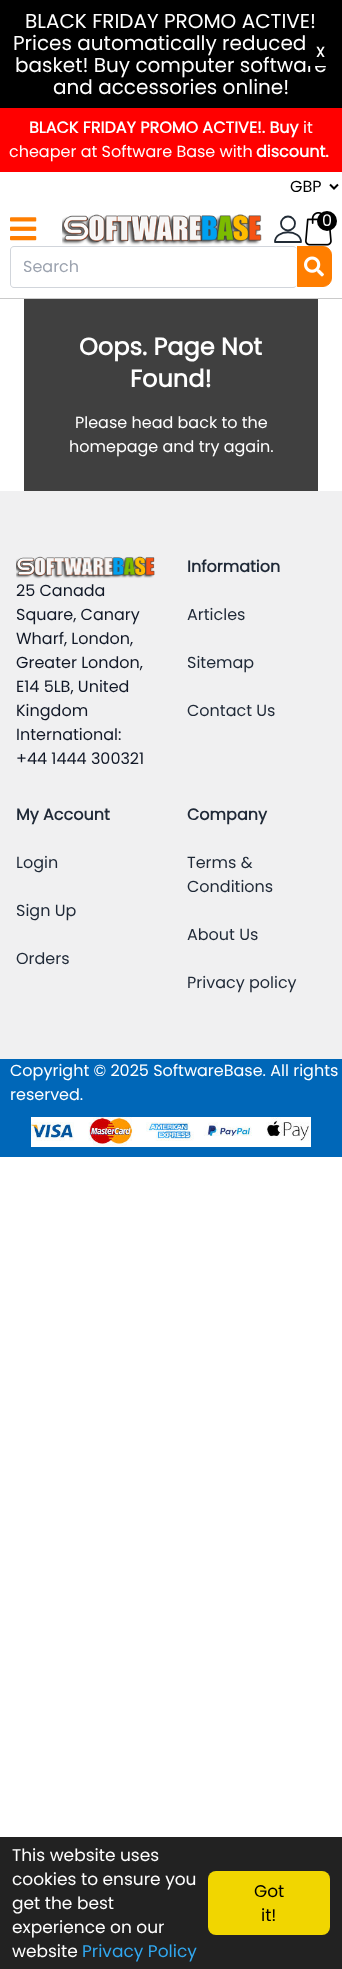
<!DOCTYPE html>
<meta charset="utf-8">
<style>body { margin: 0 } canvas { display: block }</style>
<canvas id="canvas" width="342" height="1969"></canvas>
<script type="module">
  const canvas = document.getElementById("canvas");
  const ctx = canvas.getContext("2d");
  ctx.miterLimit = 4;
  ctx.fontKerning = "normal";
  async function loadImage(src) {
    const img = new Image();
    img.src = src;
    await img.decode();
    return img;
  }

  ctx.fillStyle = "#ffffff";
  ctx.fillRect(0, 0, 342, 1969);
  ctx.fillStyle = "#000000";
  ctx.fillRect(0, 0, 342, 108);
  ctx.font = "20px Poppins";
  ctx.fillStyle = "#ffffff";
  ctx.fillText("BLACK FRIDAY PROMO ACTIVE!", 25, 28);
  ctx.fillText("Prices automatically reduced", 13, 50);
  ctx.fillText("basket! Buy computer software", 15, 72);
  ctx.fillText("and accessories online!", 53, 94);
  ctx.fillStyle = "#000000";
  ctx.fillRect(308, 60, 18, 6);
  ctx.font = "bold 14px Poppins";
  ctx.fillStyle = "#ffffff";
  ctx.fillText("X", 316, 57);
  ctx.fillStyle = "#ff0000";
  ctx.fillRect(0, 108, 342, 64);
  ctx.font = "bold 16px Poppins";
  ctx.fillStyle = "#ffffff";
  ctx.fillText("BLACK FRIDAY PROMO ACTIVE!. Buy", 29, 133);
  ctx.font = "16px Poppins";
  ctx.fillText("it", 303, 133);
  ctx.fillText("cheaper at Software Base with", 9, 157);
  ctx.font = "bold 16px Poppins";
  ctx.fillText("discount.", 256, 157);
  ctx.beginPath();
  ctx.moveTo(330, 184.5);
  ctx.lineTo(334, 188.5);
  ctx.lineTo(338, 184.5);
  ctx.strokeStyle = "#000000";
  ctx.lineWidth = 2;
  ctx.stroke();
  ctx.font = "16px Poppins";
  ctx.fillStyle = "#000000";
  ctx.fillText("GBP", 290, 192);
  ctx.fillStyle = "#cacaca";
  ctx.fillRect(0, 298, 342, 1);
  ctx.drawImage(await loadImage("img1.png"), 10, 217, 27, 24);
  ctx.drawImage(await loadImage("img2.png"), 62, 214, 200, 32);
  ctx.beginPath();
  ctx.arc(288, 223.5, 7, 0, Math.PI * 2);
  ctx.strokeStyle = "#212b36";
  ctx.lineWidth = 1.8;
  ctx.stroke();
  ctx.beginPath();
  ctx.moveTo(275, 242);
  ctx.lineTo(301, 242);
  ctx.bezierCurveTo(301, 229, 275, 229, 275, 242);
  ctx.lineCap = "round";
  ctx.lineJoin = "round";
  ctx.stroke();
  ctx.drawImage(await loadImage("img3.png"), 305, 212, 27, 34);
  ctx.fillStyle = "#000000";
  ctx.beginPath();
  ctx.arc(327, 221, 10, 0, Math.PI * 2);
  ctx.fill();
  ctx.fillStyle = "#ffffff";
  ctx.fillText("0", 322, 226);
  ctx.fillStyle = "#d1d5db";
  ctx.beginPath();
  ctx.moveTo(14, 246);
  ctx.lineTo(293, 246);
  ctx.bezierCurveTo(295, 246, 297, 248, 297, 250);
  ctx.lineTo(297, 284);
  ctx.bezierCurveTo(297, 286, 295, 288, 293, 288);
  ctx.lineTo(14, 288);
  ctx.bezierCurveTo(12, 288, 10, 286, 10, 284);
  ctx.lineTo(10, 250);
  ctx.bezierCurveTo(10, 248, 12, 246, 14, 246);
  ctx.closePath();
  ctx.moveTo(14, 247);
  ctx.lineTo(293, 247);
  ctx.bezierCurveTo(295, 247, 297, 248, 297, 250);
  ctx.lineTo(297, 284);
  ctx.bezierCurveTo(297, 286, 295, 287, 293, 287);
  ctx.lineTo(14, 287);
  ctx.bezierCurveTo(12, 287, 11, 286, 11, 284);
  ctx.lineTo(11, 250);
  ctx.bezierCurveTo(11, 248, 12, 247, 14, 247);
  ctx.closePath();
  ctx.fill("evenodd");
  ctx.fillStyle = "#9ca3af";
  ctx.fillText("Search", 23, 272);
  ctx.fillStyle = "#ff7e00";
  ctx.beginPath();
  ctx.roundRect(297.5, 246.5, 34, 40, [0, 8.5, 8.5, 0]);
  ctx.fill();
  ctx.strokeStyle = "#ff7e00";
  ctx.lineWidth = 1;
  ctx.lineJoin = "miter";
  ctx.stroke();
  ctx.drawImage(await loadImage("img4.png"), 304, 256, 20, 21);
  ctx.fillStyle = "#404040";
  ctx.fillRect(24, 299, 294, 192);
  ctx.font = "bold 24px Poppins";
  ctx.fillStyle = "#ffffff";
  ctx.fillText("Oops. Page Not", 79, 355);
  ctx.fillText("Found!", 130, 387);
  ctx.font = "16px Poppins";
  ctx.fillText("Please head back to the", 75, 428);
  ctx.fillText("homepage and try again.", 69, 452);
  ctx.fillStyle = "#f0f0f1";
  ctx.fillRect(0, 491, 342, 568);
  ctx.drawImage(await loadImage("img5.png"), 16, 556, 139, 23);
  ctx.fillStyle = "#111827";
  ctx.fillText("25 Canada", 16, 596);
  ctx.fillText("Square, Canary", 16, 620);
  ctx.fillText("Wharf, London,", 16, 644);
  ctx.fillText("Greater London,", 16, 668);
  ctx.fillText("E14 5LB, United", 16, 692);
  ctx.fillText("Kingdom", 16, 716);
  ctx.fillText("International:", 16, 740);
  ctx.fillText("+44 1444 300321", 16, 764);
  ctx.font = "bold 16px Poppins";
  ctx.fillStyle = "#1f2937";
  ctx.fillText("Information", 187, 572);
  ctx.font = "16px Poppins";
  ctx.fillText("Articles", 187, 620);
  ctx.fillText("Sitemap", 187, 668);
  ctx.fillText("Contact Us", 187, 716);
  ctx.font = "bold 16px Poppins";
  ctx.fillText("My Account", 16, 820);
  ctx.font = "16px Poppins";
  ctx.fillText("Login", 16, 868);
  ctx.fillText("Sign Up", 16, 916);
  ctx.fillText("Orders", 16, 964);
  ctx.font = "bold 16px Poppins";
  ctx.fillText("Company", 187, 820);
  ctx.font = "16px Poppins";
  ctx.fillText("Terms &", 187, 868);
  ctx.fillText("Conditions", 187, 892);
  ctx.fillText("About Us", 187, 940);
  ctx.fillText("Privacy policy", 187, 988);
  ctx.fillStyle = "#0067b8";
  ctx.fillRect(0, 1059, 342, 98);
  ctx.fillStyle = "#ffffff";
  ctx.fillText("Copyright © 2025 SoftwareBase. All rights", 10, 1076);
  ctx.fillText("reserved.", 10, 1100);
  ctx.drawImage(await loadImage("img6.png"), 31, 1117, 280, 30);
  ctx.fillStyle = "#222222";
  ctx.fillRect(0, 1837, 342, 132);
  ctx.font = "17px Poppins";
  ctx.fillStyle = "#ffffff";
  ctx.fillText("This website uses", 12, 1861);
  ctx.fillText("cookies to ensure you", 12, 1885);
  ctx.fillText("get the best", 12, 1909);
  ctx.fillText("experience on our", 12, 1933);
  ctx.fillText("website", 12, 1957);
  ctx.fillStyle = "#31a8f0";
  ctx.fillText("Privacy Policy", 82, 1957);
  ctx.fillStyle = "#f1d600";
  ctx.beginPath();
  ctx.roundRect(208, 1871, 122, 64, 8);
  ctx.fill();
  ctx.fillStyle = "#000000";
  ctx.fillText("Got", 254, 1897);
  ctx.fillText("it!", 261, 1921);
</script>
